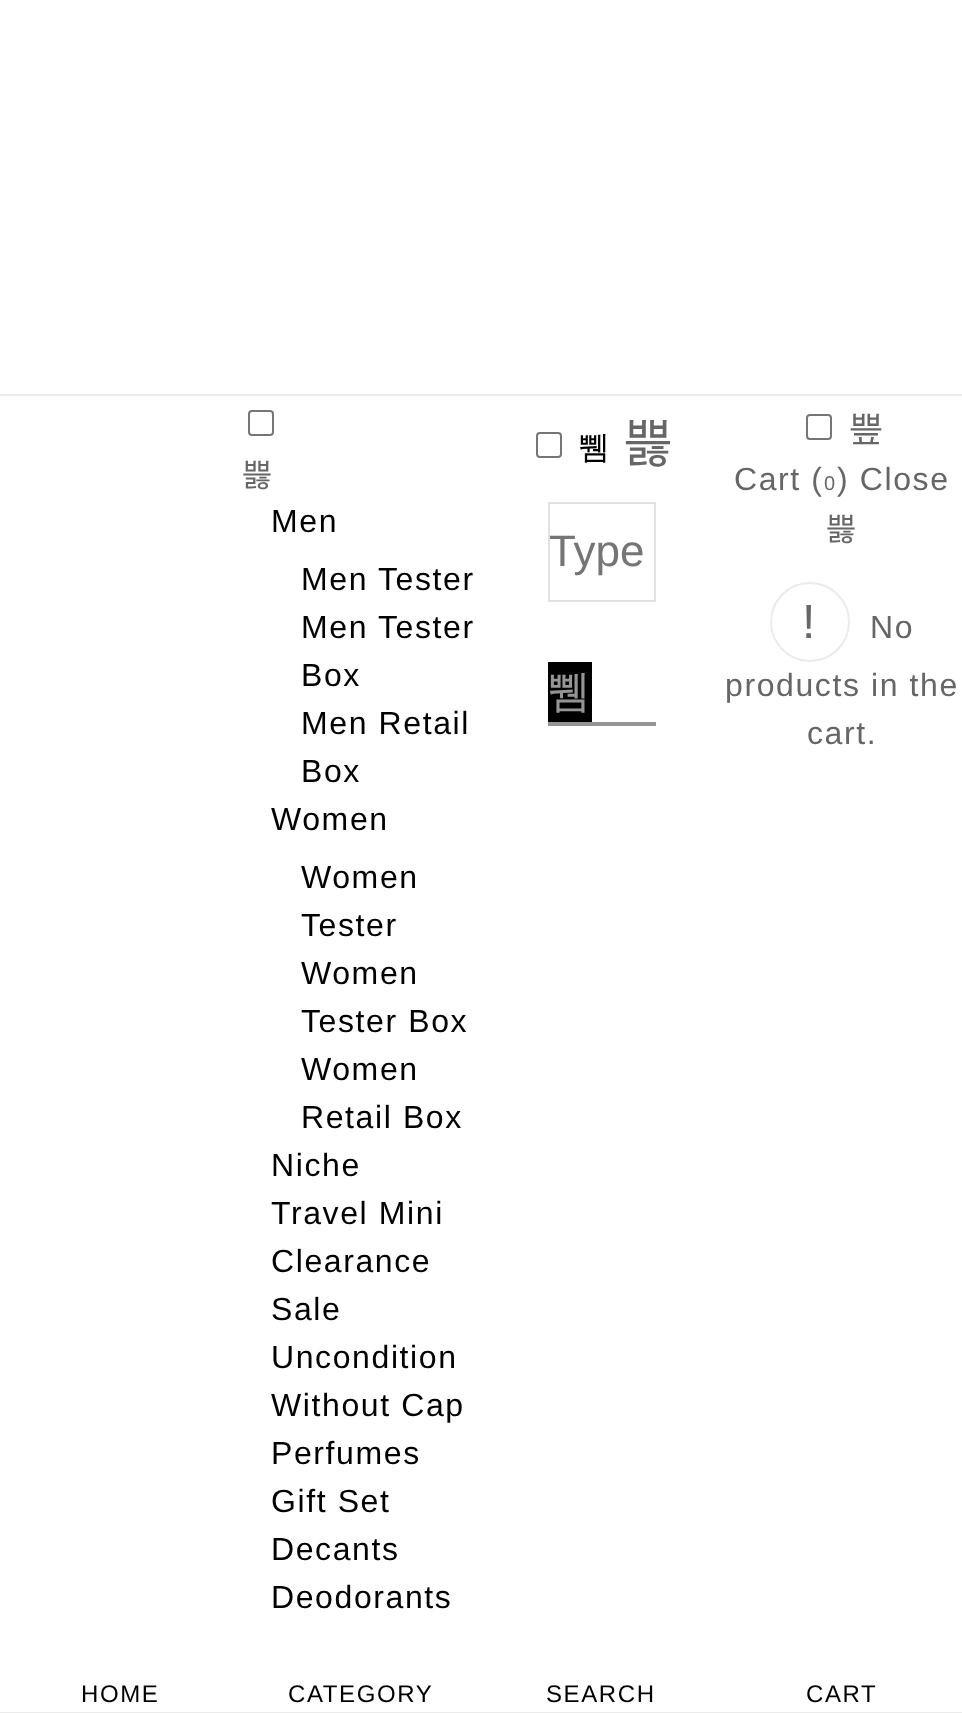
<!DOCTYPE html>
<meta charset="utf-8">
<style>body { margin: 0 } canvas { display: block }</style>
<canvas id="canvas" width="962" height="1713"></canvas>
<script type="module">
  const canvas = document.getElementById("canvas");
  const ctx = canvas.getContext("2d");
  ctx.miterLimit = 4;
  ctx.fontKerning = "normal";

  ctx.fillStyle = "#ffffff";
  ctx.fillRect(0, 0, 962, 1713);
  ctx.fillStyle = "#ebebeb";
  ctx.fillRect(0, 394, 962, 2);
  ctx.fillRect(0, 1712, 962, 1);
  ctx.letterSpacing = "1.6px";
  ctx.font = "24px Liberation Sans";
  ctx.fillStyle = "#000000";
  ctx.fillText("HOME", 81, 1702);
  ctx.beginPath();
  ctx.roundRect(249, 411, 24, 24, 3);
  ctx.strokeStyle = "#767676";
  ctx.lineWidth = 2;
  ctx.stroke();
  ctx.font = "500 32px WenQuanYi Zen Hei";
  ctx.fillStyle = "#666666";
  ctx.fillText("쁧", 241, 484);
  ctx.font = "32px Liberation Sans";
  ctx.fillStyle = "#000000";
  ctx.fillText("Men", 271, 532);
  ctx.fillText("Men Tester", 301, 590);
  ctx.fillText("Men Tester", 301, 638);
  ctx.fillText("Box", 301, 686);
  ctx.fillText("Men Retail", 301, 734);
  ctx.fillText("Box", 301, 782);
  ctx.fillText("Women", 271, 830);
  ctx.fillText("Women", 301, 888);
  ctx.fillText("Tester", 301, 936);
  ctx.fillText("Women", 301, 984);
  ctx.fillText("Tester Box", 301, 1032);
  ctx.fillText("Women", 301, 1080);
  ctx.fillText("Retail Box", 301, 1128);
  ctx.fillText("Niche", 271, 1176);
  ctx.fillText("Travel Mini", 271, 1224);
  ctx.fillText("Clearance", 271, 1272);
  ctx.fillText("Sale", 271, 1320);
  ctx.fillText("Uncondition", 271, 1368);
  ctx.fillText("Without Cap", 271, 1416);
  ctx.fillText("Perfumes", 271, 1464);
  ctx.fillText("Gift Set", 271, 1512);
  ctx.fillText("Decants", 271, 1560);
  ctx.fillText("Deodorants", 271, 1608);
  ctx.font = "24px Liberation Sans";
  ctx.fillText("CATEGORY", 288, 1702);
  ctx.beginPath();
  ctx.roundRect(537, 433, 24, 24, 3);
  ctx.stroke();
  ctx.font = "500 32px WenQuanYi Zen Hei";
  ctx.fillText("쀔", 578, 458);
  ctx.font = "500 52px WenQuanYi Zen Hei";
  ctx.fillStyle = "#666666";
  ctx.fillText("쁧", 622, 458);
  ctx.fillStyle = "#959595";
  ctx.fillRect(548, 722, 108, 4);
  ctx.strokeStyle = "#e1e1e1";
  ctx.strokeRect(549, 503, 106, 98);
  ctx.letterSpacing = "0px";
  ctx.font = "44px Liberation Sans";
  ctx.fillStyle = "#757575";
  ctx.fillText("Type", 549, 566);
  ctx.fillStyle = "#000000";
  ctx.fillRect(548, 662, 44, 60);
  ctx.font = "500 44px WenQuanYi Zen Hei";
  ctx.fillStyle = "#959595";
  ctx.fillText("쀔", 547, 706);
  ctx.letterSpacing = "1.6px";
  ctx.font = "24px Liberation Sans";
  ctx.fillStyle = "#000000";
  ctx.fillText("SEARCH", 546, 1702);
  ctx.beginPath();
  ctx.roundRect(807, 415, 24, 24, 3);
  ctx.strokeStyle = "#767676";
  ctx.stroke();
  ctx.font = "500 36px WenQuanYi Zen Hei";
  ctx.fillStyle = "#666666";
  ctx.fillText("쁲", 848, 440);
  ctx.font = "32px Liberation Sans";
  ctx.fillText("Cart (", 734, 490);
  ctx.font = "20px Liberation Sans";
  ctx.fillText("0", 824, 490);
  ctx.font = "32px Liberation Sans";
  ctx.fillText(") Close", 837, 490);
  ctx.font = "500 32px WenQuanYi Zen Hei";
  ctx.fillText("쁧", 825, 538);
  ctx.beginPath();
  ctx.arc(810, 622, 39, 0, Math.PI * 2);
  ctx.strokeStyle = "#ebebeb";
  ctx.stroke();
  ctx.font = "48px Liberation Sans";
  ctx.fillText("!", 802, 638);
  ctx.font = "32px Liberation Sans";
  ctx.fillText("No", 870, 638);
  ctx.fillText("products in the", 725, 696);
  ctx.fillText("cart.", 807, 744);
  ctx.font = "24px Liberation Sans";
  ctx.fillStyle = "#000000";
  ctx.fillText("CART", 806, 1702);
</script>
